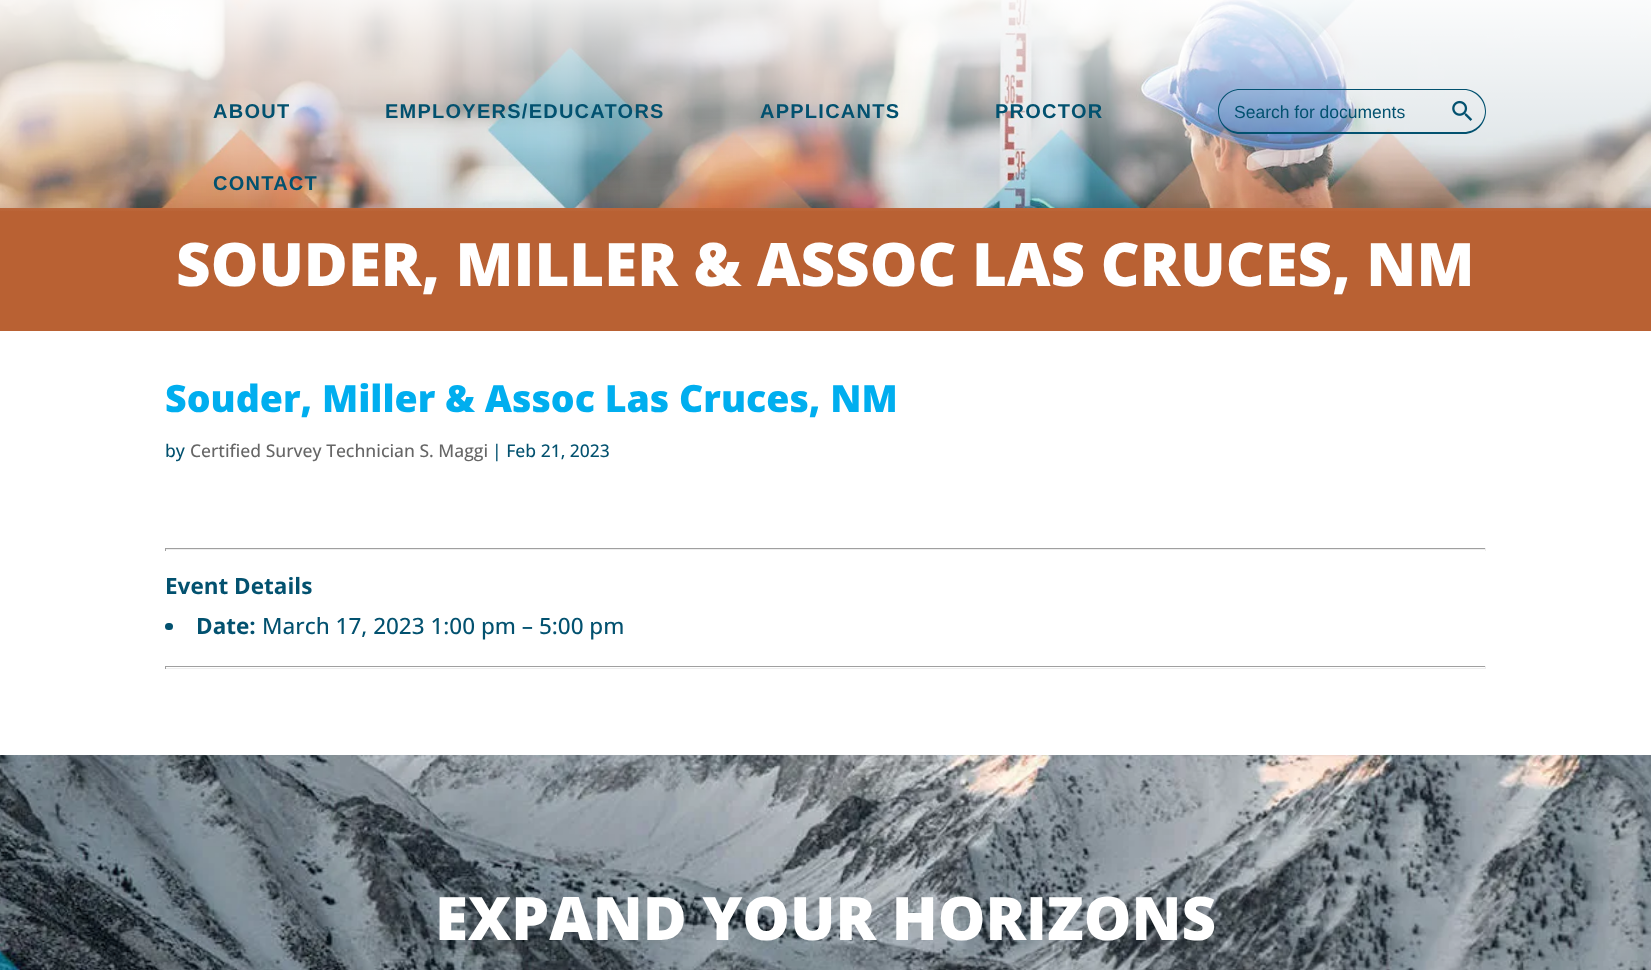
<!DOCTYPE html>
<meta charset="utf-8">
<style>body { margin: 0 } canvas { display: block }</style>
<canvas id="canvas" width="1651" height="970"></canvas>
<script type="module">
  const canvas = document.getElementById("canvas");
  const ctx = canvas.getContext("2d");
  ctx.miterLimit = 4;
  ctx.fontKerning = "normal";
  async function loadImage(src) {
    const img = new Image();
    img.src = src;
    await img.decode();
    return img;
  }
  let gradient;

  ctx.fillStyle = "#ffffff";
  ctx.fillRect(0, 0, 1651, 970);
  ctx.drawImage(await loadImage("img2.png"), 0, 0, 1651, 208);
  ctx.fillStyle = "#b96133";
  ctx.fillRect(0, 208, 1651, 123);
  gradient = ctx.createLinearGradient(826, 216, 826, 0);
  gradient.addColorStop(0, "rgba(255, 255, 255, 0)");
  gradient.addColorStop(1, "rgba(255, 255, 255, 0.9)");
  ctx.fillStyle = gradient;
  ctx.fillRect(0, 0, 1651, 211);
  ctx.letterSpacing = "1.25px";
  ctx.font = "bold 20px Liberation Sans";
  ctx.fillStyle = "#02516f";
  ctx.fillText("ABOUT", 213, 118);
  ctx.fillText("EMPLOYERS/EDUCATORS", 385, 118);
  ctx.fillText("APPLICANTS", 760, 118);
  ctx.fillText("PROCTOR", 995, 118);
  ctx.fillText("CONTACT", 213, 190);
  ctx.beginPath();
  ctx.moveTo(1240, 89);
  ctx.lineTo(1441, 89);
  ctx.lineTo(1441, 134);
  ctx.lineTo(1240, 134);
  ctx.bezierCurveTo(1228, 134, 1218, 124, 1218, 111);
  ctx.bezierCurveTo(1218, 99, 1228, 89, 1240, 89);
  ctx.closePath();
  ctx.moveTo(1240, 90);
  ctx.lineTo(1441, 90);
  ctx.lineTo(1441, 132);
  ctx.lineTo(1240, 132);
  ctx.bezierCurveTo(1228, 132, 1219, 123, 1219, 111);
  ctx.bezierCurveTo(1219, 100, 1228, 90, 1240, 90);
  ctx.closePath();
  ctx.fill("evenodd");
  ctx.letterSpacing = "0px";
  ctx.font = "17.5px Liberation Sans";
  ctx.fillText("Search for documents", 1234, 118);
  ctx.beginPath();
  ctx.moveTo(1441, 89);
  ctx.lineTo(1464, 89);
  ctx.bezierCurveTo(1476, 89, 1486, 99, 1486, 111);
  ctx.bezierCurveTo(1486, 124, 1476, 134, 1464, 134);
  ctx.lineTo(1441, 134);
  ctx.closePath();
  ctx.moveTo(1441, 90);
  ctx.lineTo(1464, 90);
  ctx.bezierCurveTo(1475, 90, 1485, 100, 1485, 111);
  ctx.bezierCurveTo(1485, 123, 1475, 132, 1464, 132);
  ctx.lineTo(1441, 132);
  ctx.closePath();
  ctx.fill("evenodd");
  ctx.drawImage(await loadImage("img1.png"), 1452, 100, 21, 21);
  ctx.font = "800 60px Open Sans";
  ctx.fillStyle = "#ffffff";
  ctx.fillText("SOUDER, MILLER & ASSOC LAS CRUCES, NM", 176, 286);
  ctx.font = "800 37.5px Open Sans";
  ctx.fillStyle = "#00aeef";
  ctx.fillText("Souder, Miller & Assoc Las Cruces, NM", 165, 412);
  ctx.font = "500 17.5px Open Sans";
  ctx.fillStyle = "#02516f";
  ctx.fillText("by", 165, 457);
  ctx.fillStyle = "#666666";
  ctx.fillText("Certified Survey Technician S. Maggi", 190, 457);
  ctx.fillStyle = "#02516f";
  ctx.fillText("| Feb 21, 2023", 492, 457);
  ctx.fillStyle = "#9f9f9f";
  ctx.fillRect(165, 548, 1321, 1);
  ctx.fillStyle = "#eeeeee";
  ctx.fillRect(1485, 548, 1, 3);
  ctx.fillRect(165, 549, 1321, 1);
  ctx.fillStyle = "#9f9f9f";
  ctx.fillRect(165, 548, 1, 3);
  ctx.font = "bold 22.5px Open Sans";
  ctx.fillStyle = "#02516f";
  ctx.fillText("Event Details", 165, 594);
  ctx.beginPath();
  ctx.roundRect(165, 623, 8, 7, 3.5);
  ctx.fill();
  ctx.fillText("Date:", 196, 634);
  ctx.font = "500 22.5px Open Sans";
  ctx.fillText("March 17, 2023 1:00 pm – 5:00 pm", 262, 634);
  ctx.fillStyle = "#9f9f9f";
  ctx.fillRect(165, 666, 1321, 1);
  ctx.fillStyle = "#eeeeee";
  ctx.fillRect(1485, 666, 1, 3);
  ctx.fillRect(165, 668, 1321, 1);
  ctx.fillStyle = "#9f9f9f";
  ctx.fillRect(165, 666, 1, 3);
  ctx.drawImage(await loadImage("img3.png"), 0, 755, 1651, 215);
  ctx.font = "800 60px Open Sans";
  ctx.fillStyle = "#ffffff";
  ctx.fillText("EXPAND YOUR HORIZONS", 435, 940);
</script>
